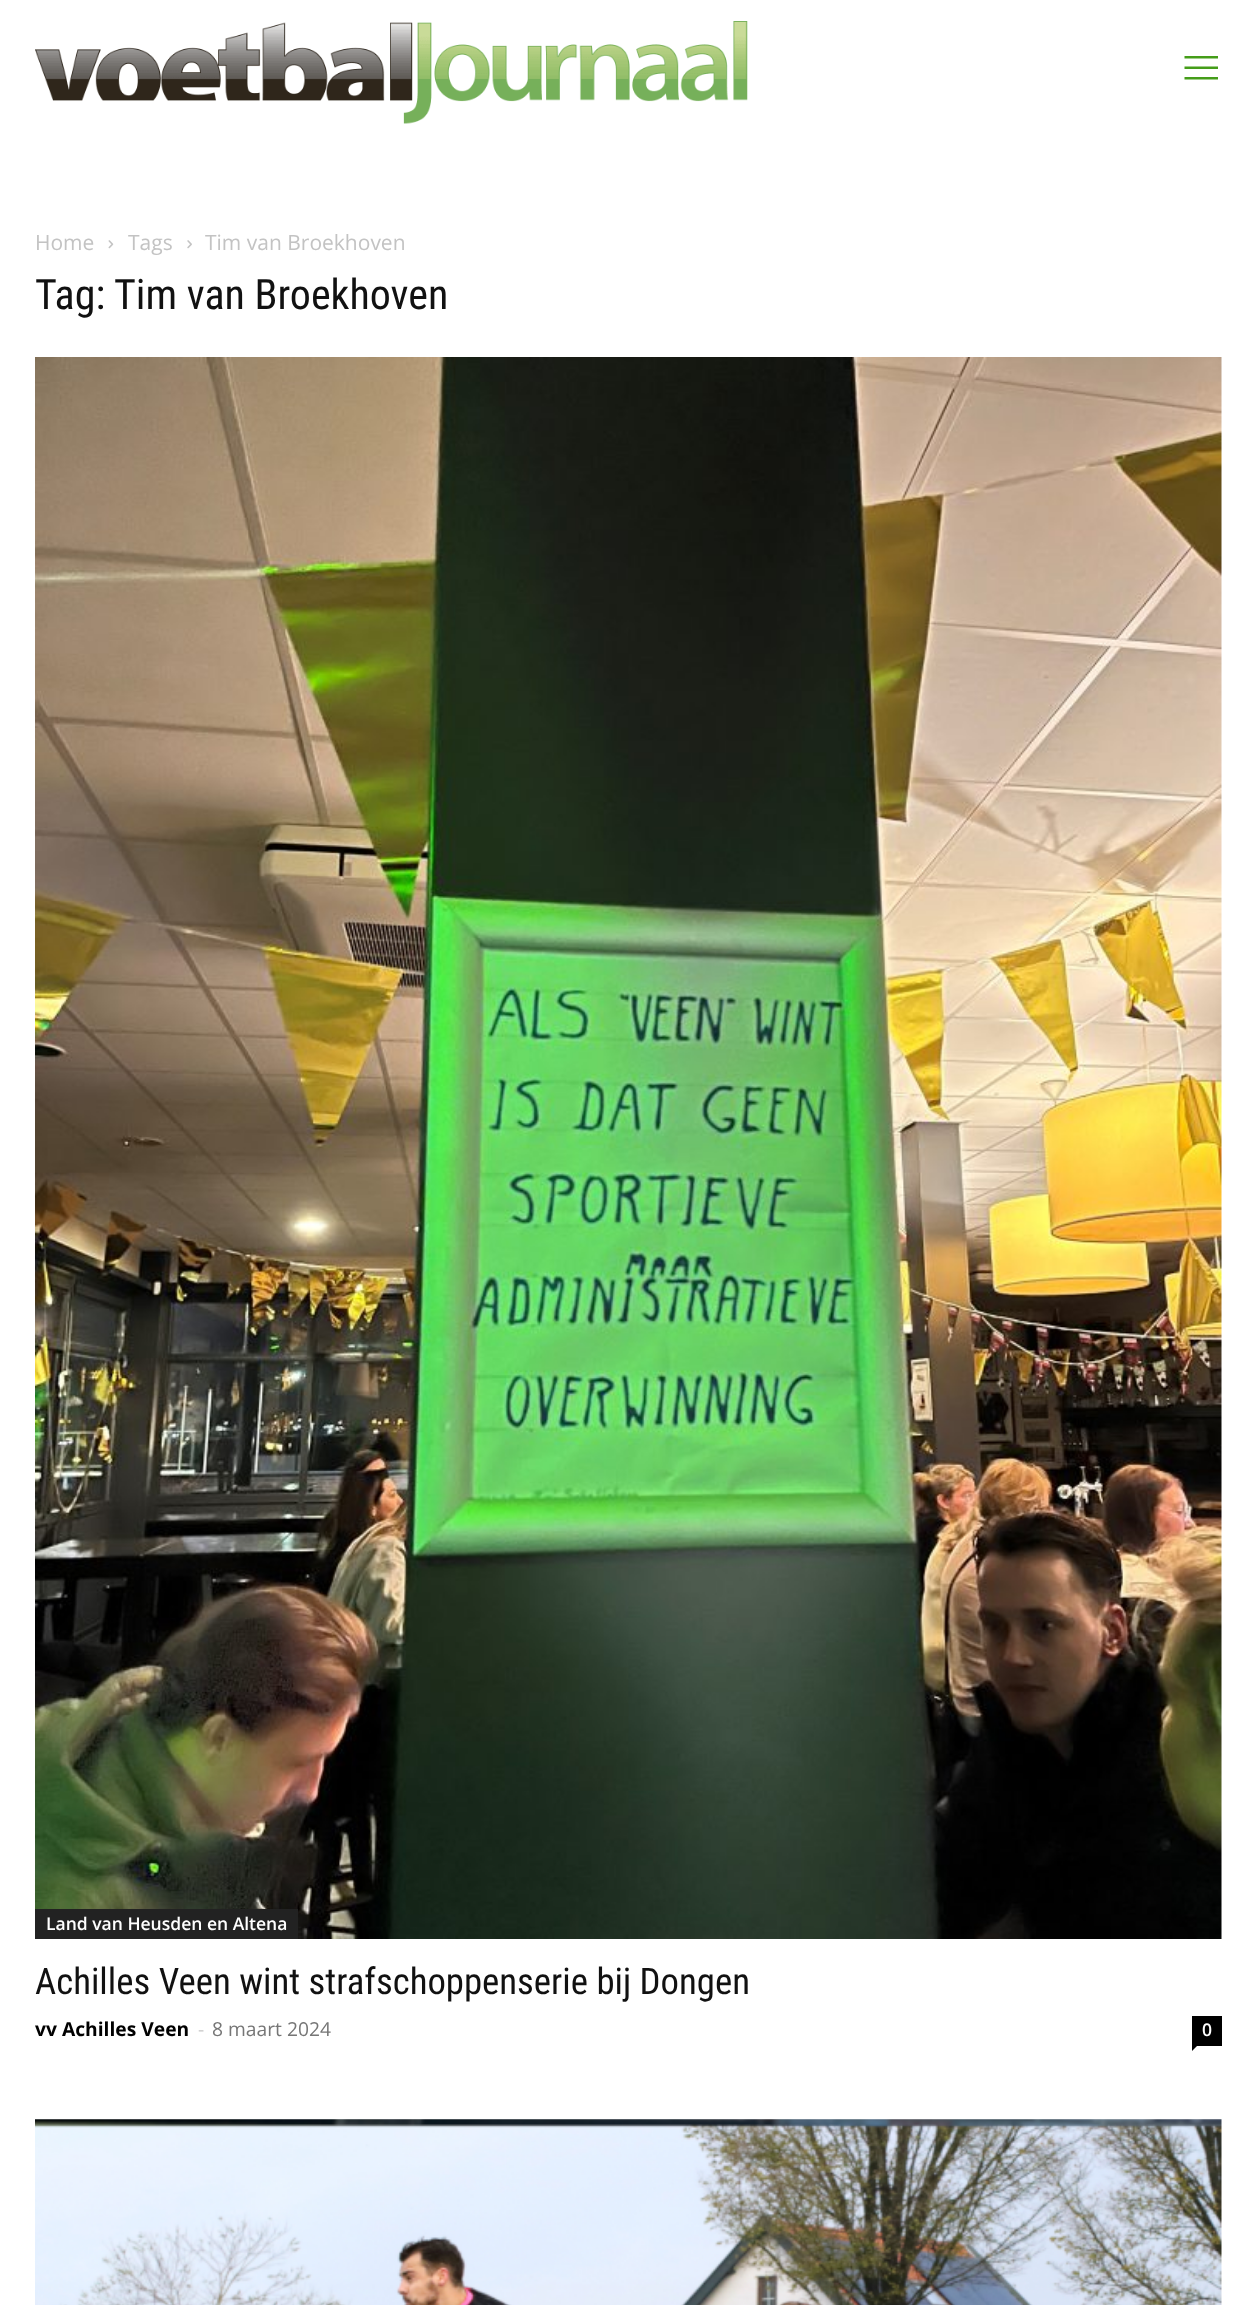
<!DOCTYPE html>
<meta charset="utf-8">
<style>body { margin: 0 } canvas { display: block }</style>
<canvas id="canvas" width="1256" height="2305"></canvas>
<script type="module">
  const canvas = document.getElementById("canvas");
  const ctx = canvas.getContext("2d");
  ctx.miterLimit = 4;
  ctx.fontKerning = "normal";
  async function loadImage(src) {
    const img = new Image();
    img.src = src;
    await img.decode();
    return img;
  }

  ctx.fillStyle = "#ffffff";
  ctx.fillRect(0, 0, 1256, 2305);
  ctx.drawImage(await loadImage("img1.png"), 35, 21, 713, 103);
  ctx.fillStyle = "#459d19";
  ctx.beginPath();
  ctx.moveTo(1184.5, 66.5);
  ctx.lineTo(1218, 66.5);
  ctx.lineTo(1218, 69);
  ctx.lineTo(1184.5, 69);
  ctx.closePath();
  ctx.moveTo(1184.5, 56);
  ctx.lineTo(1218, 56);
  ctx.lineTo(1218, 58.5);
  ctx.lineTo(1184.5, 58.5);
  ctx.closePath();
  ctx.moveTo(1184.5, 77);
  ctx.lineTo(1218, 77);
  ctx.lineTo(1218, 79.5);
  ctx.lineTo(1184.5, 79.5);
  ctx.closePath();
  ctx.fill();
  ctx.font = "21px Open Sans";
  ctx.fillStyle = "#c3c3c3";
  ctx.fillText("Home", 35, 250);
  ctx.drawImage(await loadImage("img2.png"), 108, 240, 6, 9);
  ctx.fillText("Tags", 128, 250);
  ctx.drawImage(await loadImage("img3.png"), 187, 240, 5, 9);
  ctx.fillText("Tim van Broekhoven", 205, 250);
  ctx.font = "42px Roboto Condensed";
  ctx.fillStyle = "#111111";
  ctx.fillText("Tag: Tim van Broekhoven", 35, 309);
  ctx.drawImage(await loadImage("img4.png"), 35, 357, 1187, 1582);
  ctx.fillStyle = "#222222";
  ctx.fillRect(35, 1909, 263, 30);
  ctx.font = "600 17.5px Open Sans";
  ctx.fillStyle = "#ffffff";
  ctx.fillText("Land van Heusden en Altena", 46, 1930);
  ctx.font = "36.75px Roboto Condensed";
  ctx.fillStyle = "#111111";
  ctx.fillText("Achilles Veen wint strafschoppenserie bij Dongen", 35, 1994);
  ctx.font = "bold 19.25px Open Sans";
  ctx.fillStyle = "#000000";
  ctx.fillText("vv Achilles Veen", 35, 2036);
  ctx.font = "19.25px Open Sans";
  ctx.fillStyle = "#cccccc";
  ctx.fillText("-", 198, 2036);
  ctx.fillStyle = "#767676";
  ctx.fillText("8 maart 2024", 212, 2036);
  ctx.fillStyle = "#000000";
  ctx.fillRect(1192, 2016, 30, 30);
  ctx.font = "600 17.5px Open Sans";
  ctx.fillStyle = "#ffffff";
  ctx.fillText("0", 1202, 2036);
  ctx.fillStyle = "#000000";
  ctx.beginPath();
  ctx.moveTo(1192, 2046);
  ctx.lineTo(1197, 2046);
  ctx.lineTo(1192, 2051);
  ctx.closePath();
  ctx.fill();
  ctx.drawImage(await loadImage("img5.png"), 35, 2119, 1187, 186);
</script>
